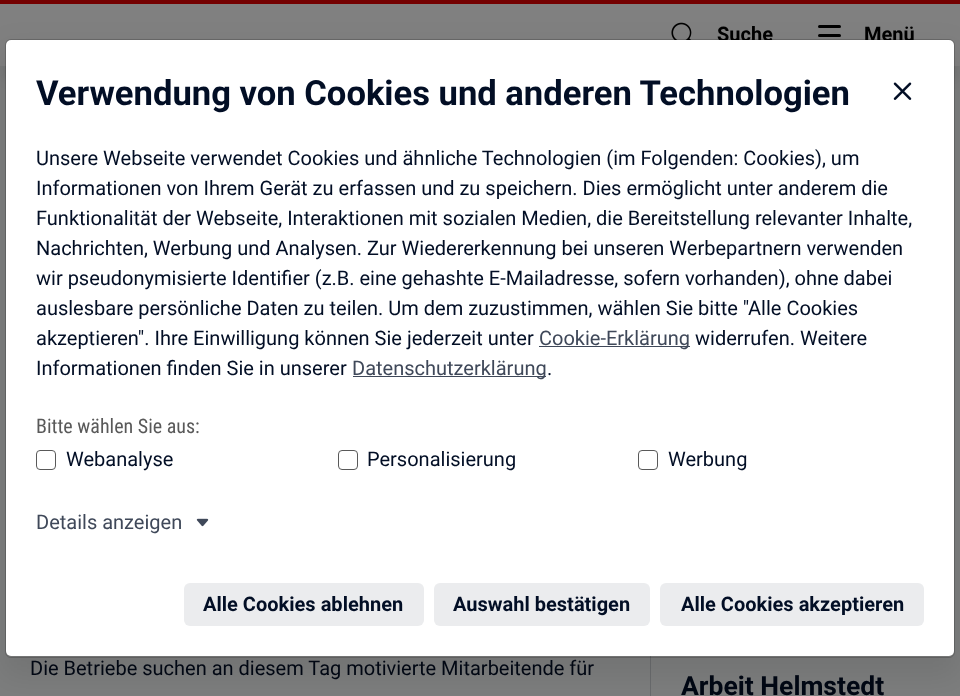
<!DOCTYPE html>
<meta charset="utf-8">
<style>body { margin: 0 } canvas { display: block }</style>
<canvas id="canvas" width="960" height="696"></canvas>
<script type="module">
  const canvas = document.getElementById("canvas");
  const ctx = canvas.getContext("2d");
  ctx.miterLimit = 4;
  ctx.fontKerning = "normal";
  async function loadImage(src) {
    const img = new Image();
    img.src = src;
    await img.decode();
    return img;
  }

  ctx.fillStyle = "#7d7e7e";
  ctx.fillRect(0, 0, 960, 696);
  ctx.fillStyle = "rgba(0, 0, 0, 0.08)";
  ctx.filter = "blur(6px)";
  ctx.beginPath();
  ctx.rect(3, 18, 955, 61);
  ctx.fill();
  ctx.filter = "none";
  ctx.fillStyle = "#808080";
  ctx.fillRect(0, 4, 960, 62);
  ctx.fillStyle = "#740000";
  ctx.fillRect(0, 0, 960, 4);
  ctx.drawImage(await loadImage("img1.png"), 671, 22, 21, 18);
  ctx.font = "bold 20px Roboto";
  ctx.fillStyle = "#000000";
  ctx.fillText("Suche", 717, 41);
  ctx.beginPath();
  ctx.roundRect(818, 34, 23, 3, 1.5);
  ctx.fill();
  ctx.beginPath();
  ctx.roundRect(818, 25, 23, 3, 1.5);
  ctx.fill();
  ctx.fillText("Menü", 864, 41);
  ctx.fillStyle = "#696b6d";
  ctx.fillRect(650, 656, 1, 40);
  ctx.fillStyle = "rgba(0, 0, 0, 0.08)";
  ctx.filter = "blur(15px)";
  ctx.beginPath();
  ctx.roundRect(0, 49, 960, 629, 11);
  ctx.fill();
  ctx.filter = "none";
  ctx.fillStyle = "#ffffff";
  ctx.beginPath();
  ctx.roundRect(6, 40, 948, 616, 5);
  ctx.fill();
  ctx.beginPath();
  ctx.roundRect(5.5, 39.5, 949, 618, 5.5);
  ctx.strokeStyle = "rgba(0, 0, 0, 0.18)";
  ctx.stroke();
  ctx.font = "bold 34.6px 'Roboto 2'";
  ctx.fillStyle = "#020e25";
  ctx.fillText("Verwendung von Cookies und anderen Technologien", 36, 105);
  ctx.drawImage(await loadImage("img2.png"), 893, 82, 19, 18);
  ctx.font = "20px Roboto";
  ctx.fillText("Unsere Webseite verwendet Cookies und ähnliche Technologien (im Folgenden: Cookies), um", 36, 165);
  ctx.fillText("Informationen von Ihrem Gerät zu erfassen und zu speichern. Dies ermöglicht unter anderem die", 36, 195);
  ctx.fillText("Funktionalität der Webseite, Interaktionen mit sozialen Medien, die Bereitstellung relevanter Inhalte,", 36, 225);
  ctx.fillText("Nachrichten, Werbung und Analysen. Zur Wiedererkennung bei unseren Werbepartnern verwenden", 36, 255);
  ctx.fillText("wir pseudonymisierte Identifier (z.B. eine gehashte E-Mailadresse, sofern vorhanden), ohne dabei", 36, 285);
  ctx.fillText("auslesbare persönliche Daten zu teilen. Um dem zuzustimmen, wählen Sie bitte \"Alle Cookies", 36, 315);
  ctx.fillText("akzeptieren\". Ihre Einwilligung können Sie jederzeit unter", 36, 345);
  ctx.fillStyle = "#3f4859";
  ctx.fillRect(539, 346, 151, 1);
  ctx.fillText("Cookie-Erklärung", 539, 345);
  ctx.fillStyle = "#020e25";
  ctx.fillText("widerrufen. Weitere", 695, 345);
  ctx.fillText("Informationen finden Sie in unserer", 36, 375);
  ctx.fillStyle = "#3f4859";
  ctx.fillRect(353, 376, 193, 1);
  ctx.fillText("Datenschutzerklärung", 352, 375);
  ctx.fillStyle = "#020e25";
  ctx.fillText(".", 547, 375);
  ctx.font = "20px Roboto Condensed";
  ctx.fillStyle = "#595959";
  ctx.fillText("Bitte wählen Sie aus:", 36, 433);
  ctx.beginPath();
  ctx.roundRect(36.5, 450.5, 19, 19, 3.5);
  ctx.strokeStyle = "#595959";
  ctx.stroke();
  ctx.font = "20px Roboto";
  ctx.fillStyle = "#020e25";
  ctx.fillText("Webanalyse", 66, 466);
  ctx.beginPath();
  ctx.roundRect(338.5, 450.5, 19, 19, 3.5);
  ctx.stroke();
  ctx.fillText("Personalisierung", 367, 466);
  ctx.beginPath();
  ctx.roundRect(638.5, 450.5, 19, 19, 3.5);
  ctx.stroke();
  ctx.fillText("Werbung", 668, 466);
  ctx.fillStyle = "#3f4859";
  ctx.fillText("Details anzeigen", 36, 529);
  ctx.drawImage(await loadImage("img3.png"), 196, 518, 13, 9);
  ctx.fillStyle = "#ebecee";
  ctx.beginPath();
  ctx.roundRect(184, 583, 240, 43, 6);
  ctx.fill();
  ctx.font = "bold 20px Roboto";
  ctx.fillStyle = "#020e25";
  ctx.fillText("Alle Cookies ablehnen", 203, 611);
  ctx.fillStyle = "#ebecee";
  ctx.beginPath();
  ctx.roundRect(434, 583, 216, 43, 6);
  ctx.fill();
  ctx.fillStyle = "#020e25";
  ctx.fillText("Auswahl bestätigen", 453, 611);
  ctx.fillStyle = "#ebecee";
  ctx.beginPath();
  ctx.roundRect(660, 583, 264, 43, 6);
  ctx.fill();
  ctx.fillStyle = "#020e25";
  ctx.fillText("Alle Cookies akzeptieren", 681, 611);
  ctx.font = "20px Roboto";
  ctx.fillStyle = "#010713";
  ctx.fillText("Die Betriebe suchen an diesem Tag motivierte Mitarbeitende für", 30, 675);
  ctx.font = "bold 26.5px Roboto";
  ctx.fillText("Arbeit Helmstedt", 681, 695);
</script>
